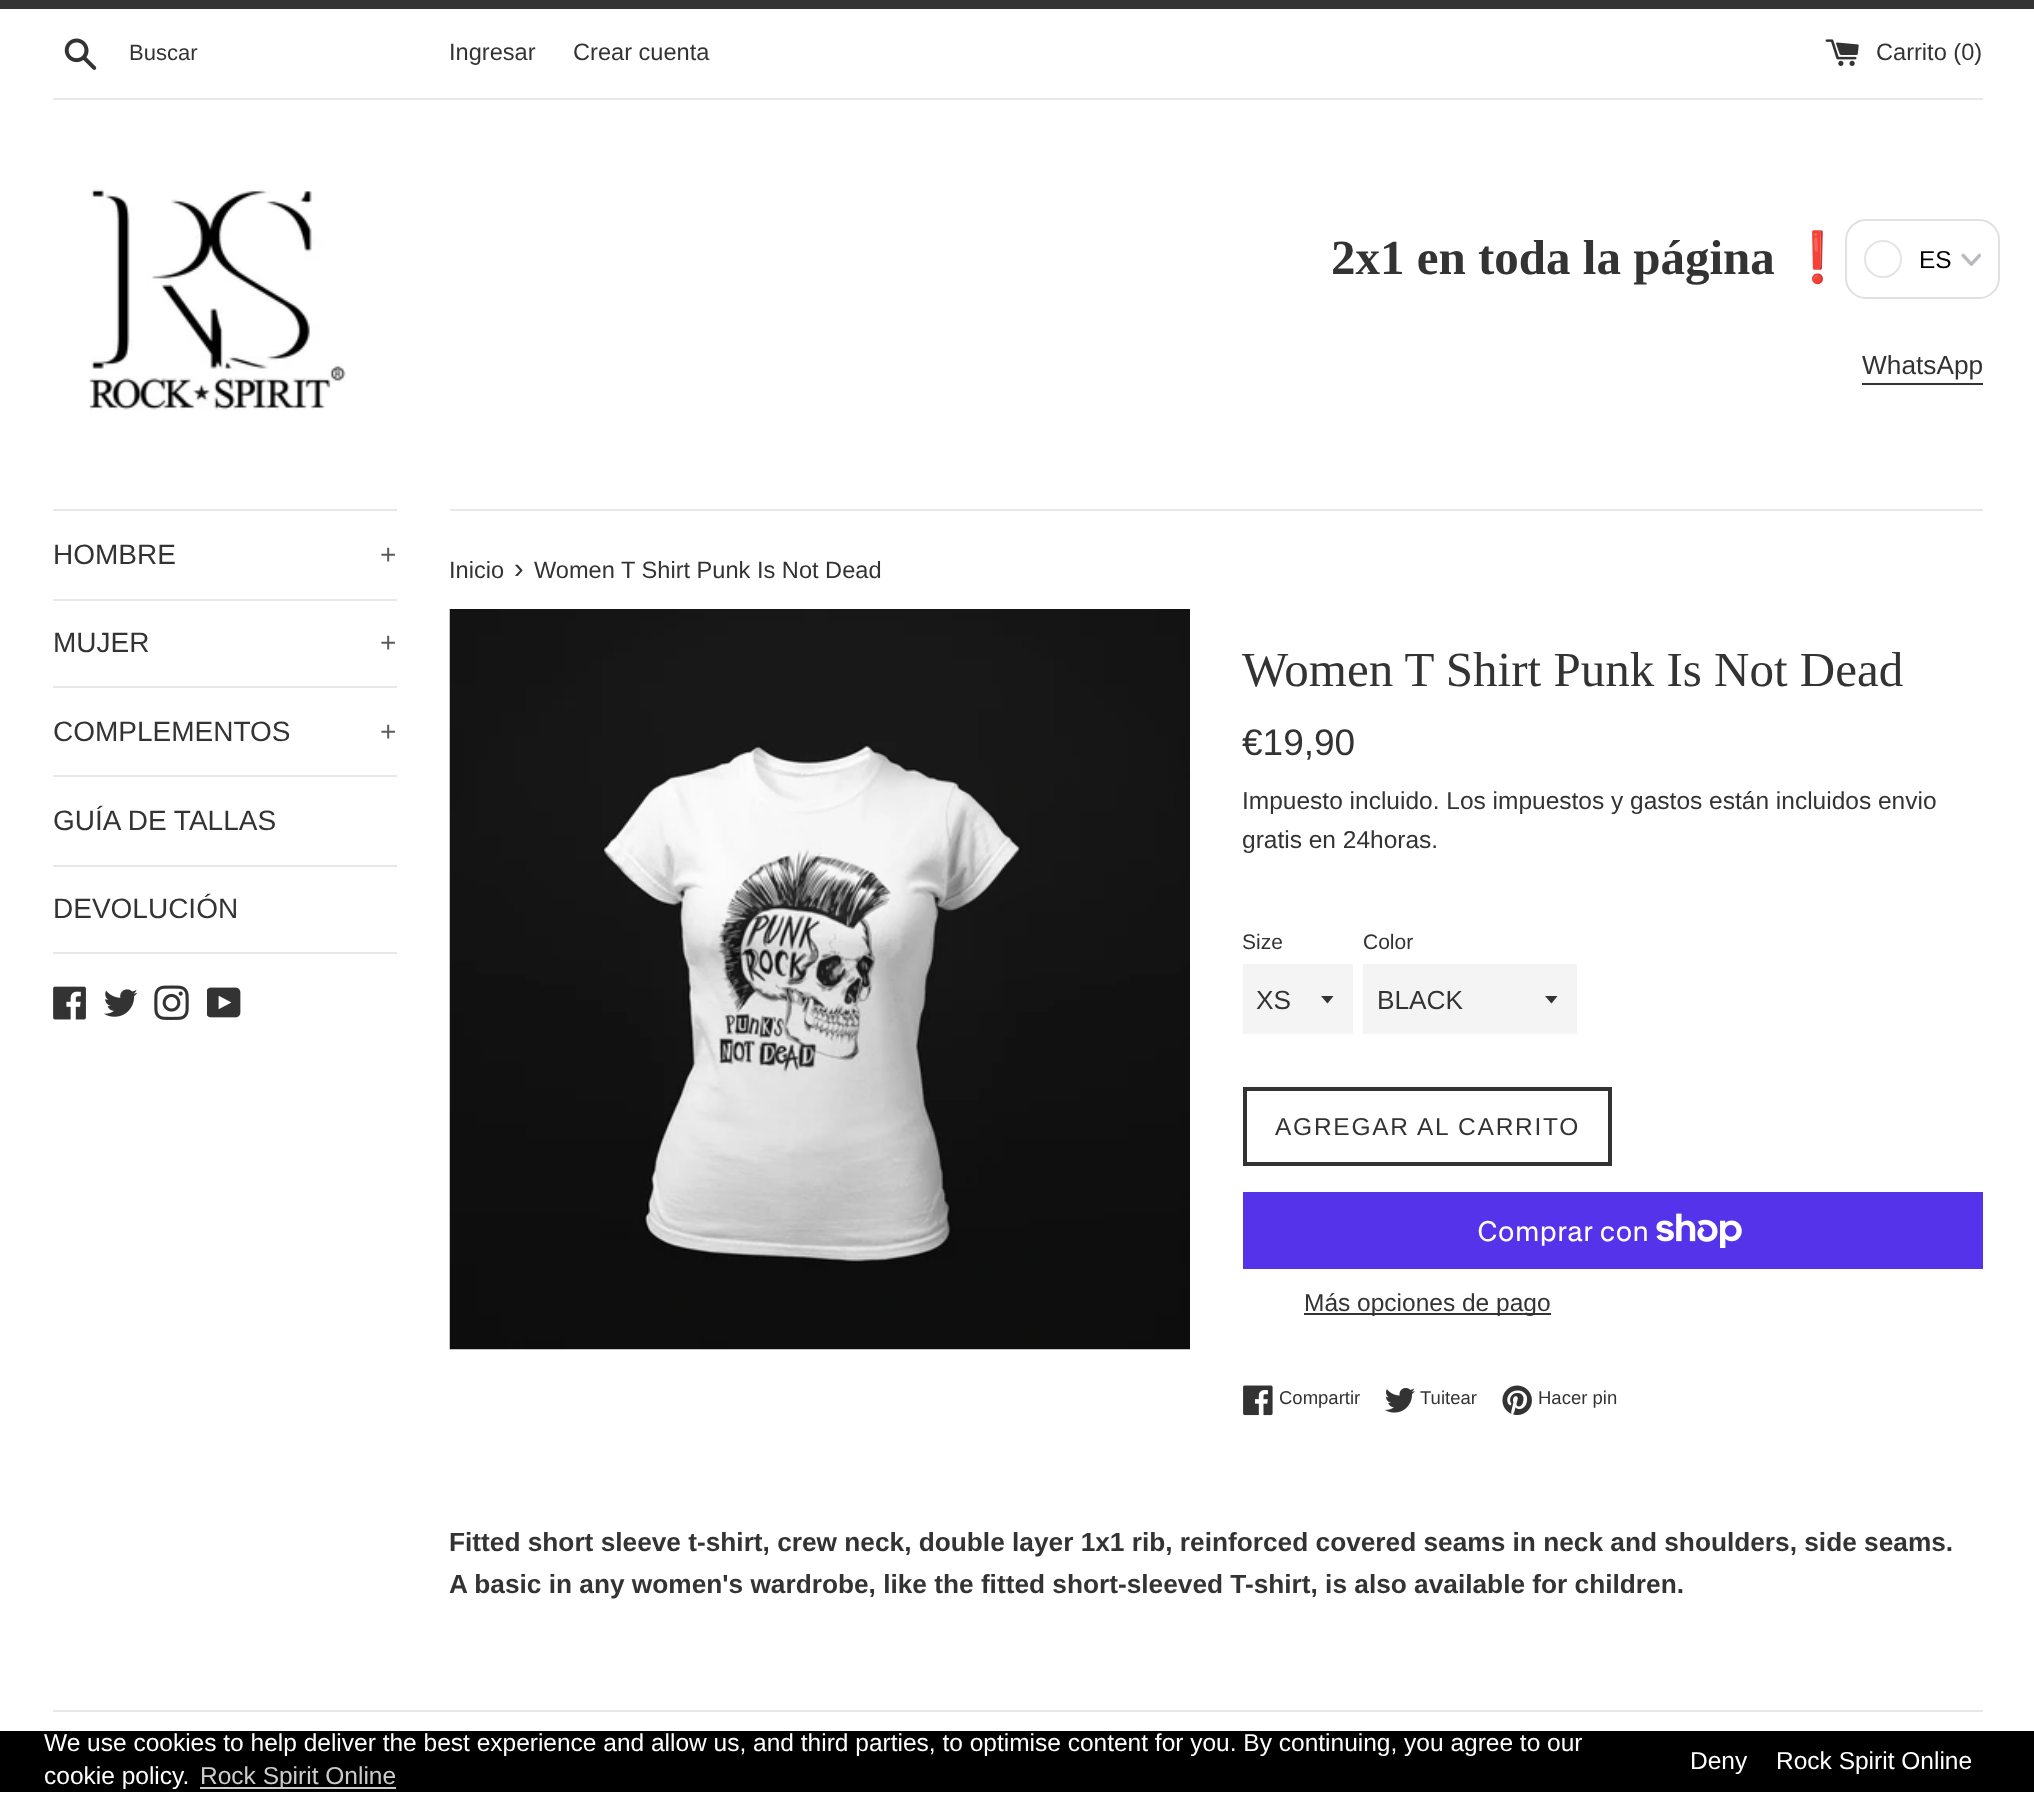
<!DOCTYPE html>
<meta charset="utf-8">
<style>body { margin: 0 } canvas { display: block }</style>
<canvas id="canvas" width="2034" height="1816"></canvas>
<script type="module">
  const canvas = document.getElementById("canvas");
  const ctx = canvas.getContext("2d");
  ctx.miterLimit = 4;
  ctx.fontKerning = "normal";
  async function loadImage(src) {
    const img = new Image();
    img.src = src;
    await img.decode();
    return img;
  }

  ctx.fillStyle = "#ffffff";
  ctx.fillRect(0, 0, 2034, 1816);
  ctx.fillStyle = "#333333";
  ctx.fillRect(0, 0, 2034, 9);
  ctx.drawImage(await loadImage("img1.png"), 64, 38, 33, 32);
  ctx.font = "22px Liberation Sans";
  ctx.fillText("Buscar", 129, 60);
  ctx.font = "23.6px Liberation Sans";
  ctx.fillText("Ingresar", 449, 60);
  ctx.fillText("Crear cuenta", 573, 60);
  ctx.drawImage(await loadImage("img2.png"), 1825, 39, 34, 27);
  ctx.fillText("Carrito (0)", 1876, 60);
  ctx.fillStyle = "#e8e8e8";
  ctx.fillRect(53, 98, 1930, 2);
  ctx.drawImage(await loadImage("img3.png"), 89, 188, 257, 223);
  ctx.font = "bold 49px Liberation Serif";
  ctx.fillStyle = "#333333";
  ctx.fillText("2x1 en toda la página", 1331, 274);
  ctx.font = "bold 49px Noto Color Emoji";
  ctx.fillText("❗️", 1787, 274);
  ctx.font = "26.25px Liberation Sans";
  ctx.fillText("WhatsApp", 1862, 374);
  ctx.fillRect(1862, 383, 121, 2);
  ctx.fillStyle = "#ffffff";
  ctx.beginPath();
  ctx.roundRect(1846, 220, 153, 78, 20);
  ctx.fill();
  ctx.strokeStyle = "#e0e0e0";
  ctx.lineWidth = 2;
  ctx.stroke();
  ctx.beginPath();
  ctx.arc(1883, 259, 18, 0, Math.PI * 2);
  ctx.strokeStyle = "#e6e3e3";
  ctx.stroke();
  ctx.font = "24.5px Liberation Sans";
  ctx.fillStyle = "#000000";
  ctx.fillText("ES", 1919, 268);
  ctx.drawImage(await loadImage("img4.png"), 1961, 253, 20, 13);
  ctx.fillStyle = "#e8e8e8";
  ctx.fillRect(53, 509, 344, 2);
  ctx.fillRect(53, 599, 344, 2);
  ctx.font = "28px Liberation Sans";
  ctx.fillStyle = "#333333";
  ctx.fillText("HOMBRE", 53, 564);
  ctx.fillStyle = "#5c5c5c";
  ctx.fillText("+", 380, 564);
  ctx.fillStyle = "#e8e8e8";
  ctx.fillRect(53, 686, 344, 2);
  ctx.fillStyle = "#333333";
  ctx.fillText("MUJER", 53, 652);
  ctx.fillStyle = "#5c5c5c";
  ctx.fillText("+", 380, 652);
  ctx.fillStyle = "#e8e8e8";
  ctx.fillRect(53, 775, 344, 2);
  ctx.fillStyle = "#333333";
  ctx.fillText("COMPLEMENTOS", 53, 741);
  ctx.fillStyle = "#5c5c5c";
  ctx.fillText("+", 380, 741);
  ctx.fillStyle = "#e8e8e8";
  ctx.fillRect(53, 865, 344, 2);
  ctx.fillStyle = "#333333";
  ctx.fillText("GUÍA DE TALLAS", 53, 830);
  ctx.fillStyle = "#e8e8e8";
  ctx.fillRect(53, 952, 344, 2);
  ctx.fillStyle = "#333333";
  ctx.fillText("DEVOLUCIÓN", 53, 918);
  ctx.drawImage(await loadImage("img5.png"), 53, 986, 33, 34);
  ctx.drawImage(await loadImage("img6.png"), 104, 989, 34, 28);
  ctx.drawImage(await loadImage("img7.png"), 154, 985, 35, 35);
  ctx.drawImage(await loadImage("img8.png"), 207, 987, 34, 31);
  ctx.fillStyle = "#e8e8e8";
  ctx.fillRect(450, 509, 1533, 2);
  ctx.font = "23.6px Liberation Sans";
  ctx.fillStyle = "#333333";
  ctx.fillText("Inicio", 449, 578);
  ctx.font = "29px Liberation Sans";
  ctx.fillText("›", 514, 578);
  ctx.font = "23.6px Liberation Sans";
  ctx.fillText("Women T Shirt Punk Is Not Dead", 534, 578);
  ctx.drawImage(await loadImage("img9.png"), 449, 609, 741, 741);
  ctx.font = "49px Liberation Serif";
  ctx.fillText("Women T Shirt Punk Is Not Dead", 1242, 686);
  ctx.font = "37px Liberation Sans";
  ctx.fillText("€19,90", 1242, 755);
  ctx.font = "24.5px Liberation Sans";
  ctx.fillText("Impuesto incluido. Los impuestos y gastos están incluidos envio", 1242, 809);
  ctx.fillText("gratis en 24horas.", 1242, 848);
  ctx.font = "21px Liberation Sans";
  ctx.fillText("Size", 1242, 949);
  ctx.fillStyle = "#f4f4f4";
  ctx.fillRect(1243, 964, 110, 70);
  ctx.fillStyle = "#333333";
  ctx.beginPath();
  ctx.moveTo(1321, 996);
  ctx.lineTo(1327.5, 1003.5);
  ctx.lineTo(1333.5, 996);
  ctx.closePath();
  ctx.fill();
  ctx.font = "26.25px Liberation Sans";
  ctx.fillText("XS", 1256, 1009);
  ctx.font = "21px Liberation Sans";
  ctx.fillText("Color", 1363, 949);
  ctx.fillStyle = "#f4f4f4";
  ctx.fillRect(1363, 964, 214, 70);
  ctx.fillStyle = "#333333";
  ctx.beginPath();
  ctx.moveTo(1545, 996);
  ctx.lineTo(1551.5, 1003.5);
  ctx.lineTo(1557.5, 996);
  ctx.closePath();
  ctx.fill();
  ctx.font = "26.25px Liberation Sans";
  ctx.fillText("BLACK", 1377, 1009);
  ctx.strokeStyle = "#333333";
  ctx.lineWidth = 4;
  ctx.strokeRect(1245, 1089, 365, 75);
  ctx.letterSpacing = "1.75px";
  ctx.font = "24.5px Liberation Sans";
  ctx.fillText("AGREGAR AL CARRITO", 1275, 1135);
  ctx.fillStyle = "#5433eb";
  ctx.fillRect(1243, 1192, 740, 77);
  ctx.letterSpacing = "0px";
  ctx.font = "28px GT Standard";
  ctx.fillStyle = "#ffffff";
  ctx.fillText("Comprar con", 1477, 1241);
  ctx.drawImage(await loadImage("img10.png"), 1656, 1213, 86, 35);
  ctx.fillStyle = "#333333";
  ctx.fillRect(1304, 1313, 247, 2);
  ctx.font = "24.5px Liberation Sans";
  ctx.fillText("Más opciones de pago", 1304, 1311);
  ctx.drawImage(await loadImage("img11.png"), 1243, 1385, 30, 31);
  ctx.font = "18.5px Liberation Sans";
  ctx.fillText("Compartir", 1279, 1404);
  ctx.drawImage(await loadImage("img12.png"), 1385, 1388, 30, 25);
  ctx.fillText("Tuitear", 1420, 1404);
  ctx.drawImage(await loadImage("img13.png"), 1502, 1385, 30, 30);
  ctx.fillText("Hacer pin", 1538, 1404);
  ctx.font = "bold 26.25px Liberation Sans";
  ctx.fillText("Fitted short sleeve t-shirt, crew neck, double layer 1x1 rib, reinforced covered seams in neck and shoulders, side seams.", 449, 1551);
  ctx.fillText("A basic in any women's wardrobe, like the fitted short-sleeved T-shirt, is also available for children.", 449, 1593);
  ctx.fillStyle = "#e8e8e8";
  ctx.fillRect(53, 1710, 1930, 2);
  ctx.fillStyle = "#000000";
  ctx.fillRect(0, 1731, 2034, 61);
  ctx.font = "24.5px Liberation Sans";
  ctx.fillStyle = "#ffffff";
  ctx.fillText("We use cookies to help deliver the best experience and allow us, and third parties, to optimise content for you. By continuing, you agree to our", 44, 1751);
  ctx.fillText("cookie policy.", 44, 1784);
  ctx.fillStyle = "#cccccc";
  ctx.fillRect(200, 1787, 196, 2);
  ctx.fillText("Rock Spirit Online", 200, 1784);
  ctx.fillStyle = "#ffffff";
  ctx.fillText("Deny", 1690, 1769);
  ctx.fillText("Rock Spirit Online", 1776, 1769);
</script>
